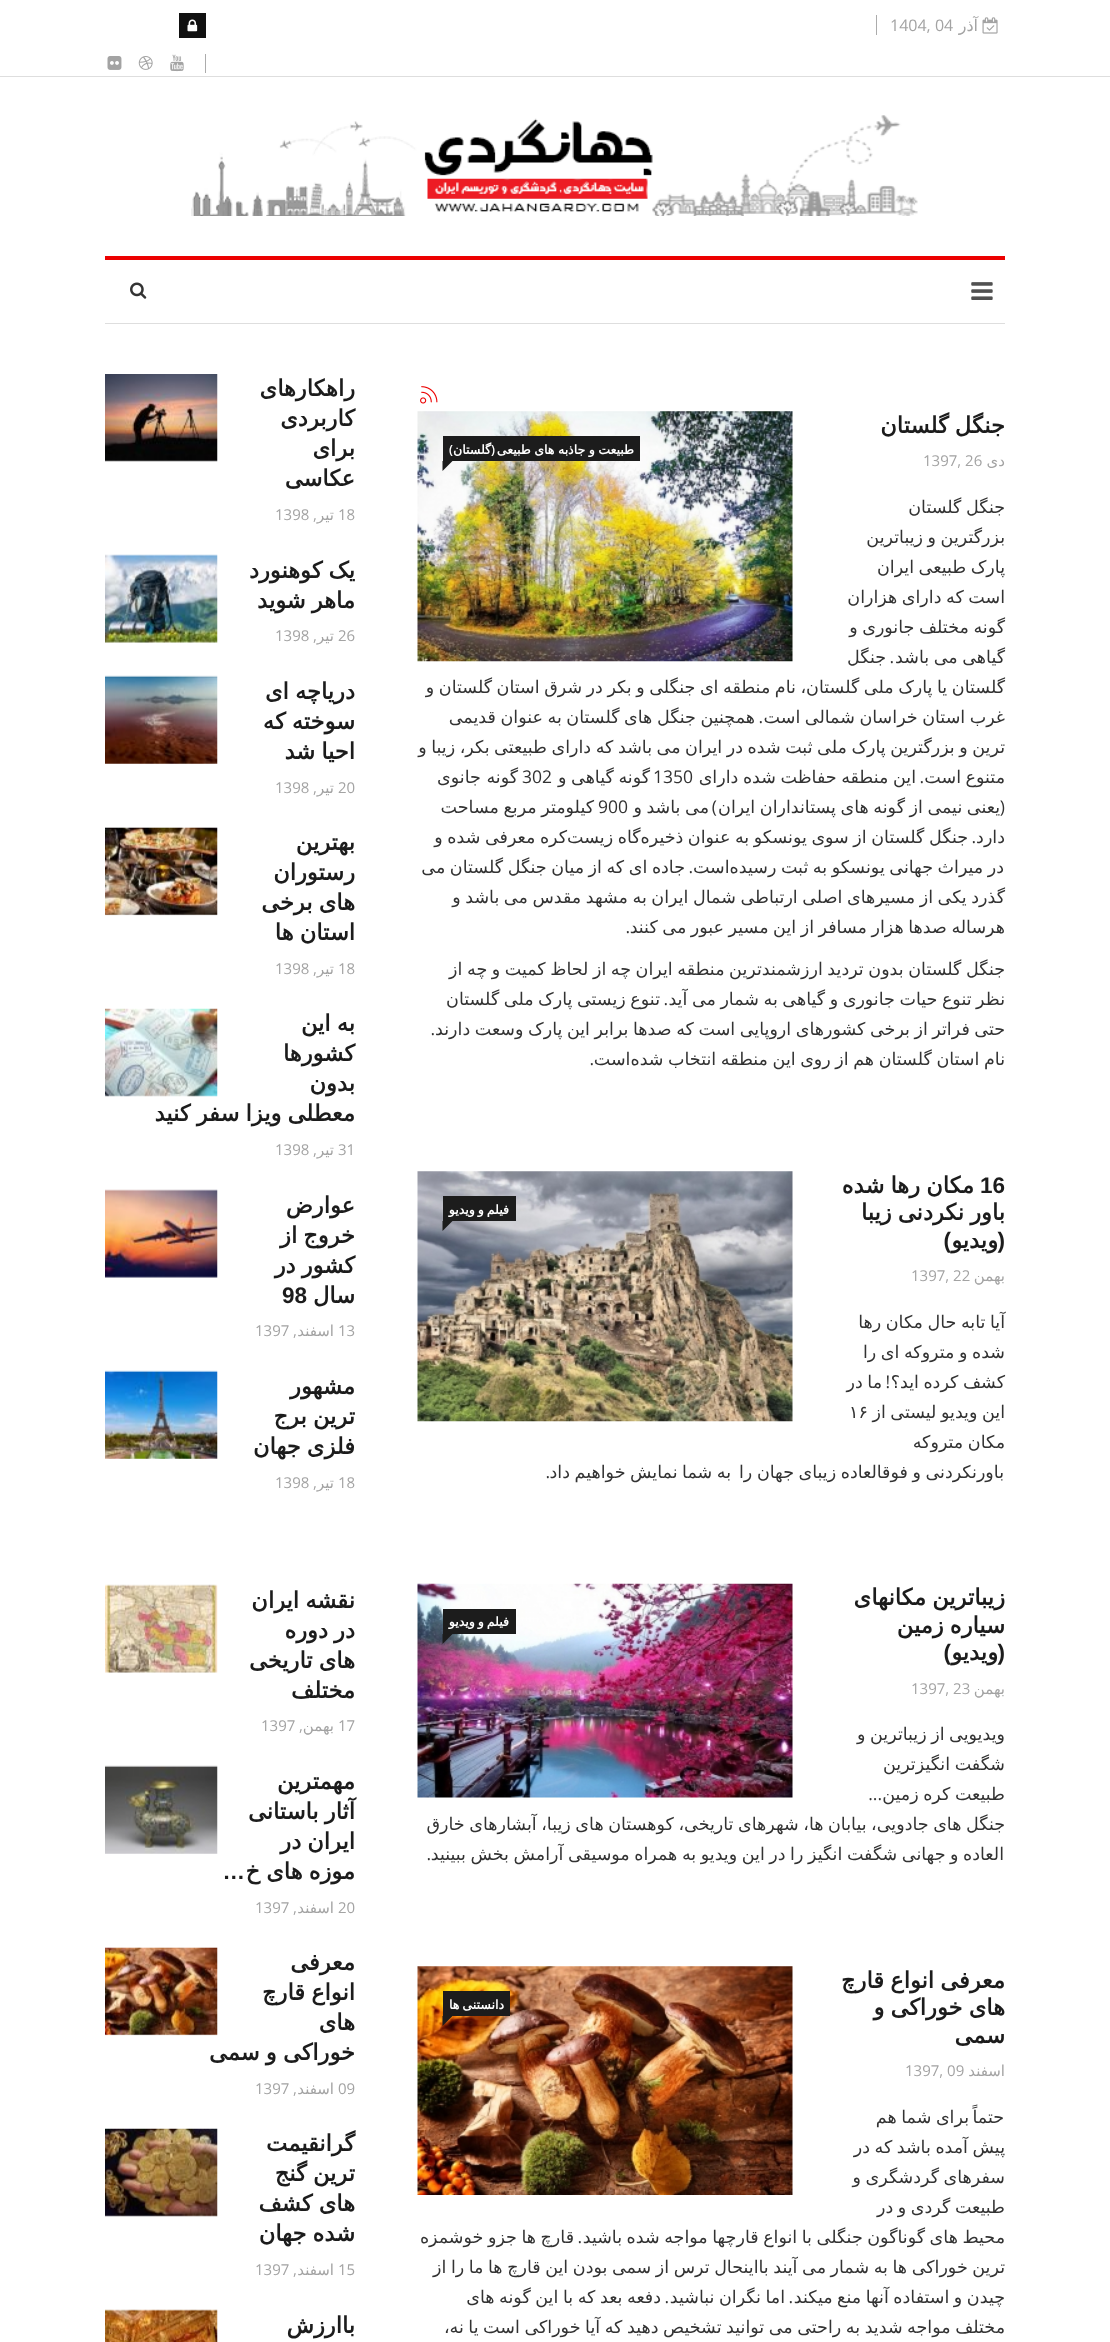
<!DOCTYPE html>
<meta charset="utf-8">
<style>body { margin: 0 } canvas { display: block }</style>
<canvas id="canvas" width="1110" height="2342"></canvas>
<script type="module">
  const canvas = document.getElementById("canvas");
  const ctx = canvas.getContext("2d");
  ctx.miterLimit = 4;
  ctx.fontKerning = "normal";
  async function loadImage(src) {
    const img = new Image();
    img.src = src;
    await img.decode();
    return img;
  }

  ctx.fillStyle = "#ffffff";
  ctx.fillRect(0, 0, 1110, 2342);
  ctx.fillStyle = "#dedede";
  ctx.fillRect(0, 76, 1110, 1);
  ctx.fillStyle = "#acacac";
  ctx.fillRect(876, 15, 1, 20);
  ctx.drawImage(await loadImage("img1.png"), 982, 17, 16, 17);
  ctx.direction = "rtl";
  ctx.font = "16px DejaVu Sans";
  ctx.fillStyle = "#a3a3a3";
  ctx.fillText("آذر", 978, 31);
  ctx.direction = "ltr";
  ctx.font = "16px Open Sans";
  ctx.fillText("1404, 04", 890, 31);
  ctx.fillStyle = "#111111";
  ctx.fillRect(179, 13, 27, 25);
  ctx.drawImage(await loadImage("img2.png"), 187, 19, 11, 13);
  ctx.fillStyle = "#acacac";
  ctx.fillRect(205, 54, 1, 19);
  ctx.drawImage(await loadImage("img3.png"), 170, 54, 14, 18);
  ctx.drawImage(await loadImage("img4.png"), 138, 56, 15, 14);
  ctx.drawImage(await loadImage("img5.png"), 107, 56, 15, 14);
  ctx.drawImage(await loadImage("img6.png"), 191, 115, 727, 101);
  ctx.fillStyle = "#ec0000";
  ctx.fillRect(105, 256, 900, 4);
  ctx.fillStyle = "#dedede";
  ctx.fillRect(105, 323, 900, 1);
  ctx.drawImage(await loadImage("img7.png"), 971, 282, 22, 18);
  ctx.drawImage(await loadImage("img8.png"), 130, 282, 17, 17);
  ctx.drawImage(await loadImage("img9.png"), 420, 386, 18, 18);
  ctx.wordSpacing = "-1px";
  ctx.direction = "rtl";
  ctx.font = "bold 22.5px DejaVu Sans";
  ctx.fillStyle = "#1c1c1c";
  ctx.fillText("جنگل گلستان", 1005, 433);
  ctx.wordSpacing = "0px";
  ctx.font = "15px DejaVu Sans";
  ctx.fillStyle = "#a3a3a3";
  ctx.fillText("دی", 1005, 466);
  ctx.direction = "ltr";
  ctx.font = "15px Open Sans";
  ctx.fillText("1397, 26", 923, 466);
  ctx.drawImage(await loadImage("img10.png"), 417, 411, 376, 251);
  ctx.fillStyle = "#1c1c1c";
  ctx.fillRect(443, 436, 197, 25);
  ctx.wordSpacing = "-0.5px";
  ctx.direction = "rtl";
  ctx.font = "bold 12.5px DejaVu Sans";
  ctx.fillStyle = "#ffffff";
  ctx.fillText("طبیعت و جاذبه های طبیعی", 634, 454);
  ctx.wordSpacing = "0px";
  ctx.font = "600 12.5px Open Sans";
  ctx.fillText("(", 495, 454);
  ctx.font = "bold 12.5px DejaVu Sans";
  ctx.fillText("گلستان", 491, 454);
  ctx.font = "600 12.5px Open Sans";
  ctx.fillText(")", 453, 454);
  ctx.fillStyle = "#1c1c1c";
  ctx.beginPath();
  ctx.moveTo(442.5, 461);
  ctx.lineTo(452.5, 461);
  ctx.lineTo(442.5, 471);
  ctx.closePath();
  ctx.fill();
  ctx.wordSpacing = "-1px";
  ctx.font = "17.5px DejaVu Sans";
  ctx.fillStyle = "#333333";
  ctx.fillText("جنگل گلستان", 1005, 513);
  ctx.fillText("بزرگترین و زیباترین", 1005, 543);
  ctx.fillText("پارک طبیعی ایران", 1005, 573);
  ctx.fillText("است که دارای هزاران", 1005, 603);
  ctx.fillText("گونه مختلف جانوری و", 1005, 633);
  ctx.fillText("گیاهی می باشد", 1005, 663);
  ctx.wordSpacing = "0px";
  ctx.font = "17.5px Open Sans";
  ctx.fillText(".", 894, 663);
  ctx.font = "17.5px DejaVu Sans";
  ctx.fillText("جنگل", 886, 663);
  ctx.wordSpacing = "-1px";
  ctx.fillText("گلستان یا پارک ملی گلستان، نام منطقه ای جنگلی و بکر در شرق استان گلستان و", 1005, 693);
  ctx.fillText("غرب استان خراسان شمالی است", 1005, 723);
  ctx.wordSpacing = "0px";
  ctx.font = "17.5px Open Sans";
  ctx.fillText(".", 763, 723);
  ctx.wordSpacing = "-1px";
  ctx.font = "17.5px DejaVu Sans";
  ctx.fillText("همچنین جنگل های گلستان به عنوان قدیمی", 755, 723);
  ctx.fillText("ترین و بزرگترین پارک ملی ثبت شده در ایران می باشد که دارای طبیعتی بکر، زیبا و", 1005, 753);
  ctx.fillText("متنوع است", 1005, 783);
  ctx.wordSpacing = "0px";
  ctx.font = "17.5px Open Sans";
  ctx.fillText(".", 924, 783);
  ctx.wordSpacing = "-1px";
  ctx.font = "17.5px DejaVu Sans";
  ctx.fillText("این منطقه حفاظت شده دارای", 916, 783);
  ctx.wordSpacing = "0px";
  ctx.direction = "ltr";
  ctx.font = "17.5px Open Sans";
  ctx.fillText("1350", 653, 783);
  ctx.wordSpacing = "-1px";
  ctx.direction = "rtl";
  ctx.font = "17.5px DejaVu Sans";
  ctx.fillText("گونه گیاهی و", 650, 783);
  ctx.wordSpacing = "0px";
  ctx.direction = "ltr";
  ctx.font = "17.5px Open Sans";
  ctx.fillText("302", 522, 783);
  ctx.direction = "rtl";
  ctx.font = "17.5px DejaVu Sans";
  ctx.fillText("گونه جانوی", 518, 783);
  ctx.font = "17.5px Open Sans";
  ctx.fillText("(", 1005, 813);
  ctx.wordSpacing = "-1px";
  ctx.font = "17.5px DejaVu Sans";
  ctx.fillText("یعنی نیمی از گونه های پستانداران ایران", 1000, 813);
  ctx.wordSpacing = "0px";
  ctx.font = "17.5px Open Sans";
  ctx.fillText(")", 717, 813);
  ctx.wordSpacing = "-1px";
  ctx.font = "17.5px DejaVu Sans";
  ctx.fillText("می باشد و", 709, 813);
  ctx.wordSpacing = "0px";
  ctx.direction = "ltr";
  ctx.font = "17.5px Open Sans";
  ctx.fillText("900", 598, 813);
  ctx.wordSpacing = "-1px";
  ctx.direction = "rtl";
  ctx.font = "17.5px DejaVu Sans";
  ctx.fillText("کیلومتر مربع مساحت", 594, 813);
  ctx.wordSpacing = "0px";
  ctx.fillText("دارد", 1005, 843);
  ctx.font = "17.5px Open Sans";
  ctx.fillText(".", 976, 843);
  ctx.wordSpacing = "-1px";
  ctx.font = "17.5px DejaVu Sans";
  ctx.fillText("جنگل گلستان از سوی یونسکو به عنوان ذخیره‌گاه زیست‌کره معرفی شده و", 968, 843);
  ctx.fillText("در میراث جهانی یونسکو به ثبت رسیده‌است", 1004, 873);
  ctx.wordSpacing = "0px";
  ctx.font = "17.5px Open Sans";
  ctx.fillText(".", 693, 873);
  ctx.wordSpacing = "-1px";
  ctx.font = "17.5px DejaVu Sans";
  ctx.fillText("جاده ای که از میان جنگل گلستان می", 685, 873);
  ctx.fillText("گذرد یکی از مسیرهای اصلی ارتباطی شمال ایران به مشهد مقدس می باشد و", 1005, 903);
  ctx.fillText("هرساله صدها هزار مسافر از این مسیر عبور می کنند", 1005, 933);
  ctx.wordSpacing = "0px";
  ctx.font = "17.5px Open Sans";
  ctx.fillText(".", 630, 933);
  ctx.wordSpacing = "-1px";
  ctx.font = "17.5px DejaVu Sans";
  ctx.fillText("جنگل گلستان بدون تردید ارزشمندترین منطقه ایران چه از لحاظ کمیت و چه از", 1005, 975);
  ctx.fillText("نظر تنوع حیات جانوری و گیاهی به شمار می آید", 1005, 1005);
  ctx.wordSpacing = "0px";
  ctx.font = "17.5px Open Sans";
  ctx.fillText(".", 668, 1005);
  ctx.wordSpacing = "-1px";
  ctx.font = "17.5px DejaVu Sans";
  ctx.fillText("تنوع زیستی پارک ملی گلستان", 660, 1005);
  ctx.fillText("حتی فراتر از برخی کشورهای اروپایی است که صدها برابر این پارک وسعت دارند", 1005, 1035);
  ctx.wordSpacing = "0px";
  ctx.font = "17.5px Open Sans";
  ctx.fillText(".", 435, 1035);
  ctx.wordSpacing = "-1px";
  ctx.font = "17.5px DejaVu Sans";
  ctx.fillText("نام استان گلستان هم از روی این منطقه انتخاب شده‌است", 1005, 1065);
  ctx.wordSpacing = "0px";
  ctx.font = "17.5px Open Sans";
  ctx.fillText(".", 594, 1065);
  ctx.direction = "ltr";
  ctx.font = "bold 22.5px Arimo";
  ctx.fillStyle = "#1c1c1c";
  ctx.fillText("16", 980, 1193);
  ctx.wordSpacing = "-1px";
  ctx.direction = "rtl";
  ctx.font = "bold 22.5px DejaVu Sans";
  ctx.fillText("مکان رها شده", 974, 1193);
  ctx.fillText("باور نکردنی زیبا", 1005, 1220);
  ctx.wordSpacing = "0px";
  ctx.font = "bold 22.5px Arimo";
  ctx.fillText("(", 1005, 1248);
  ctx.fillText(")", 951, 1248);
  ctx.font = "bold 22.5px DejaVu Sans";
  ctx.fillText("ویدیو", 998, 1248);
  ctx.font = "15px DejaVu Sans";
  ctx.fillStyle = "#a3a3a3";
  ctx.fillText("بهمن", 1005, 1281);
  ctx.direction = "ltr";
  ctx.font = "15px Open Sans";
  ctx.fillText("1397, 22", 911, 1281);
  ctx.drawImage(await loadImage("img11.png"), 417, 1171, 376, 251);
  ctx.fillStyle = "#1c1c1c";
  ctx.fillRect(443, 1196, 73, 25);
  ctx.wordSpacing = "-1px";
  ctx.direction = "rtl";
  ctx.font = "bold 12.5px DejaVu Sans";
  ctx.fillStyle = "#ffffff";
  ctx.fillText("فیلم و ویدیو", 509, 1214);
  ctx.fillStyle = "#1c1c1c";
  ctx.beginPath();
  ctx.moveTo(442.5, 1221);
  ctx.lineTo(452.5, 1221);
  ctx.lineTo(442.5, 1231);
  ctx.closePath();
  ctx.fill();
  ctx.font = "17.5px DejaVu Sans";
  ctx.fillStyle = "#333333";
  ctx.fillText("آیا تابه حال مکان رها", 1005, 1328);
  ctx.fillText("شده و متروکه ای را", 1005, 1358);
  ctx.fillText("کشف کرده اید؟", 1005, 1388);
  ctx.wordSpacing = "0px";
  ctx.font = "17.5px Open Sans";
  ctx.fillText("!", 890, 1388);
  ctx.wordSpacing = "-1px";
  ctx.font = "17.5px DejaVu Sans";
  ctx.fillText("ما در", 882, 1388);
  ctx.fillText("این ویدیو لیستی از", 1005, 1418);
  ctx.wordSpacing = "0px";
  ctx.direction = "ltr";
  ctx.fillText("۱۶", 849, 1418);
  ctx.wordSpacing = "-1px";
  ctx.direction = "rtl";
  ctx.fillText("مکان متروکه", 1005, 1448);
  ctx.fillText("باورنکردنی و فوقالعاده زیبای جهان را", 1004, 1478);
  ctx.fillText("به شما نمایش خواهیم داد", 731, 1478);
  ctx.wordSpacing = "0px";
  ctx.font = "17.5px Open Sans";
  ctx.fillText(".", 550, 1478);
  ctx.wordSpacing = "-1px";
  ctx.font = "bold 22.5px DejaVu Sans";
  ctx.fillStyle = "#1c1c1c";
  ctx.fillText("زیباترین مکانهای", 1005, 1605);
  ctx.fillText("سیاره زمین", 1005, 1633);
  ctx.wordSpacing = "0px";
  ctx.font = "bold 22.5px Arimo";
  ctx.fillText("(", 1005, 1660);
  ctx.fillText(")", 951, 1660);
  ctx.font = "bold 22.5px DejaVu Sans";
  ctx.fillText("ویدیو", 998, 1660);
  ctx.font = "15px DejaVu Sans";
  ctx.fillStyle = "#a3a3a3";
  ctx.fillText("بهمن", 1005, 1694);
  ctx.direction = "ltr";
  ctx.font = "15px Open Sans";
  ctx.fillText("1397, 23", 911, 1694);
  ctx.drawImage(await loadImage("img12.png"), 417, 1583, 376, 215);
  ctx.fillStyle = "#1c1c1c";
  ctx.fillRect(443, 1609, 73, 25);
  ctx.wordSpacing = "-1px";
  ctx.direction = "rtl";
  ctx.font = "bold 12.5px DejaVu Sans";
  ctx.fillStyle = "#ffffff";
  ctx.fillText("فیلم و ویدیو", 509, 1626);
  ctx.fillStyle = "#1c1c1c";
  ctx.beginPath();
  ctx.moveTo(442.5, 1634);
  ctx.lineTo(452.5, 1634);
  ctx.lineTo(442.5, 1644);
  ctx.closePath();
  ctx.fill();
  ctx.font = "17.5px DejaVu Sans";
  ctx.fillStyle = "#333333";
  ctx.fillText("ویدیویی از زیباترین و", 1005, 1740);
  ctx.fillText("شگفت انگیزترین", 1005, 1770);
  ctx.fillText("طبیعت کره زمین", 1005, 1800);
  ctx.wordSpacing = "0px";
  ctx.font = "17.5px Open Sans";
  ctx.fillText("...", 882, 1800);
  ctx.wordSpacing = "-1px";
  ctx.font = "17.5px DejaVu Sans";
  ctx.fillText("جنگل های جادویی، بیابان ها، شهرهای تاریخی، کوهستان های زیبا، آبشارهای خارق", 1005, 1830);
  ctx.fillText("العاده و جهانی شگفت انگیز را در این ویدیو به همراه موسیقی آرامش بخش ببینید", 1004, 1860);
  ctx.wordSpacing = "0px";
  ctx.font = "17.5px Open Sans";
  ctx.fillText(".", 431, 1860);
  ctx.wordSpacing = "-1px";
  ctx.font = "bold 22.5px DejaVu Sans";
  ctx.fillStyle = "#1c1c1c";
  ctx.fillText("معرفی انواع قارچ", 1005, 1988);
  ctx.fillText("های خوراکی و", 1005, 2015);
  ctx.wordSpacing = "0px";
  ctx.fillText("سمی", 1005, 2043);
  ctx.font = "15px DejaVu Sans";
  ctx.fillStyle = "#a3a3a3";
  ctx.fillText("اسفند", 1005, 2076);
  ctx.direction = "ltr";
  ctx.font = "15px Open Sans";
  ctx.fillText("1397, 09", 905, 2076);
  ctx.drawImage(await loadImage("img13.png"), 417, 1966, 376, 229);
  ctx.fillStyle = "#1c1c1c";
  ctx.fillRect(443, 1991, 67, 25);
  ctx.wordSpacing = "-1px";
  ctx.direction = "rtl";
  ctx.font = "bold 12.5px DejaVu Sans";
  ctx.fillStyle = "#ffffff";
  ctx.fillText("دانستنی ها", 504, 2009);
  ctx.fillStyle = "#1c1c1c";
  ctx.beginPath();
  ctx.moveTo(442.5, 2016);
  ctx.lineTo(452.5, 2016);
  ctx.lineTo(442.5, 2026);
  ctx.closePath();
  ctx.fill();
  ctx.wordSpacing = "0px";
  ctx.font = "17.5px DejaVu Sans";
  ctx.fillStyle = "#333333";
  ctx.fillText("حتماً", 1004, 2123);
  ctx.wordSpacing = "-1px";
  ctx.fillText("برای شما هم", 969, 2123);
  ctx.fillText("پیش آمده باشد که در", 1005, 2153);
  ctx.fillText("سفرهای گردشگری و", 1005, 2183);
  ctx.fillText("طبیعت گردی و در", 1005, 2213);
  ctx.fillText("محیط های گوناگون جنگلی با انواع قارچها مواجه شده باشید", 1005, 2243);
  ctx.wordSpacing = "0px";
  ctx.font = "17.5px Open Sans";
  ctx.fillText(".", 582, 2243);
  ctx.wordSpacing = "-1px";
  ctx.font = "17.5px DejaVu Sans";
  ctx.fillText("قارچ ها جزو خوشمزه", 574, 2243);
  ctx.fillText("ترین خوراکی ها به شمار می آیند بااینحال ترس از سمی بودن این قارچ ها ما را از", 1005, 2273);
  ctx.fillText("چیدن و استفاده آنها منع میکند", 1005, 2303);
  ctx.wordSpacing = "0px";
  ctx.font = "17.5px Open Sans";
  ctx.fillText(".", 793, 2303);
  ctx.wordSpacing = "-1px";
  ctx.font = "17.5px DejaVu Sans";
  ctx.fillText("اما نگران نباشید", 785, 2303);
  ctx.wordSpacing = "0px";
  ctx.font = "17.5px Open Sans";
  ctx.fillText(".", 669, 2303);
  ctx.wordSpacing = "-1px";
  ctx.font = "17.5px DejaVu Sans";
  ctx.fillText("دفعه بعد که با این گونه های", 661, 2303);
  ctx.fillText("مختلف مواجه شدید به راحتی می توانید تشخیص دهید که آیا خوراکی است یا نه،", 1005, 2333);
  ctx.wordSpacing = "0px";
  ctx.font = "bold 22.5px DejaVu Sans";
  ctx.fillStyle = "#1c1c1c";
  ctx.fillText("راهکارهای", 355, 396);
  ctx.fillText("کاربردی", 355, 426);
  ctx.fillText("برای", 355, 456);
  ctx.fillText("عکاسی", 355, 486);
  ctx.drawImage(await loadImage("img14.png"), 105, 374, 113, 88);
  ctx.direction = "ltr";
  ctx.font = "15px Open Sans";
  ctx.fillStyle = "#a3a3a3";
  ctx.fillText("18", 338, 520);
  ctx.direction = "rtl";
  ctx.font = "15px DejaVu Sans";
  ctx.fillText("تیر", 334, 520);
  ctx.font = "15px Open Sans";
  ctx.fillText(",", 317, 520);
  ctx.direction = "ltr";
  ctx.fillText("1398", 275, 520);
  ctx.wordSpacing = "-1px";
  ctx.direction = "rtl";
  ctx.font = "bold 22.5px DejaVu Sans";
  ctx.fillStyle = "#1c1c1c";
  ctx.fillText("یک کوهنورد", 355, 578);
  ctx.fillText("ماهر شوید", 355, 608);
  ctx.drawImage(await loadImage("img15.png"), 105, 554, 113, 89);
  ctx.wordSpacing = "0px";
  ctx.direction = "ltr";
  ctx.font = "15px Open Sans";
  ctx.fillStyle = "#a3a3a3";
  ctx.fillText("26", 338, 641);
  ctx.direction = "rtl";
  ctx.font = "15px DejaVu Sans";
  ctx.fillText("تیر", 334, 641);
  ctx.font = "15px Open Sans";
  ctx.fillText(",", 317, 641);
  ctx.direction = "ltr";
  ctx.fillText("1398", 275, 641);
  ctx.wordSpacing = "-1px";
  ctx.direction = "rtl";
  ctx.font = "bold 22.5px DejaVu Sans";
  ctx.fillStyle = "#1c1c1c";
  ctx.fillText("دریاچه ای", 355, 699);
  ctx.fillText("سوخته که", 355, 729);
  ctx.fillText("احیا شد", 355, 759);
  ctx.drawImage(await loadImage("img16.png"), 105, 675, 113, 89);
  ctx.wordSpacing = "0px";
  ctx.direction = "ltr";
  ctx.font = "15px Open Sans";
  ctx.fillStyle = "#a3a3a3";
  ctx.fillText("20", 338, 793);
  ctx.direction = "rtl";
  ctx.font = "15px DejaVu Sans";
  ctx.fillText("تیر", 334, 793);
  ctx.font = "15px Open Sans";
  ctx.fillText(",", 317, 793);
  ctx.direction = "ltr";
  ctx.fillText("1398", 275, 793);
  ctx.direction = "rtl";
  ctx.font = "bold 22.5px DejaVu Sans";
  ctx.fillStyle = "#1c1c1c";
  ctx.fillText("بهترین", 355, 850);
  ctx.fillText("رستوران", 355, 880);
  ctx.wordSpacing = "-1px";
  ctx.fillText("های برخی", 355, 910);
  ctx.fillText("استان ها", 355, 940);
  ctx.drawImage(await loadImage("img17.png"), 105, 827, 113, 89);
  ctx.wordSpacing = "0px";
  ctx.direction = "ltr";
  ctx.font = "15px Open Sans";
  ctx.fillStyle = "#a3a3a3";
  ctx.fillText("18", 338, 974);
  ctx.direction = "rtl";
  ctx.font = "15px DejaVu Sans";
  ctx.fillText("تیر", 334, 974);
  ctx.font = "15px Open Sans";
  ctx.fillText(",", 317, 974);
  ctx.direction = "ltr";
  ctx.fillText("1398", 275, 974);
  ctx.drawImage(await loadImage("img18.png"), 105, 1008, 113, 89);
  ctx.wordSpacing = "-1px";
  ctx.direction = "rtl";
  ctx.font = "bold 22.5px DejaVu Sans";
  ctx.fillStyle = "#1c1c1c";
  ctx.fillText("به این", 355, 1031);
  ctx.wordSpacing = "0px";
  ctx.fillText("کشورها", 355, 1061);
  ctx.fillText("بدون", 355, 1091);
  ctx.wordSpacing = "-1px";
  ctx.fillText("معطلی ویزا سفر کنید", 355, 1121);
  ctx.wordSpacing = "0px";
  ctx.direction = "ltr";
  ctx.font = "15px Open Sans";
  ctx.fillStyle = "#a3a3a3";
  ctx.fillText("31", 338, 1155);
  ctx.direction = "rtl";
  ctx.font = "15px DejaVu Sans";
  ctx.fillText("تیر", 334, 1155);
  ctx.font = "15px Open Sans";
  ctx.fillText(",", 317, 1155);
  ctx.direction = "ltr";
  ctx.fillText("1398", 275, 1155);
  ctx.direction = "rtl";
  ctx.font = "bold 22.5px DejaVu Sans";
  ctx.fillStyle = "#1c1c1c";
  ctx.fillText("عوارض", 355, 1213);
  ctx.wordSpacing = "-1px";
  ctx.fillText("خروج از", 355, 1243);
  ctx.fillText("کشور در", 355, 1273);
  ctx.wordSpacing = "0px";
  ctx.fillText("سال", 355, 1303);
  ctx.direction = "ltr";
  ctx.font = "bold 22.5px Arimo";
  ctx.fillText("98", 282, 1303);
  ctx.drawImage(await loadImage("img19.png"), 105, 1189, 113, 89);
  ctx.font = "15px Open Sans";
  ctx.fillStyle = "#a3a3a3";
  ctx.fillText("13", 338, 1336);
  ctx.direction = "rtl";
  ctx.font = "15px DejaVu Sans";
  ctx.fillText("اسفند", 334, 1336);
  ctx.font = "15px Open Sans";
  ctx.fillText(",", 297, 1336);
  ctx.direction = "ltr";
  ctx.fillText("1397", 255, 1336);
  ctx.direction = "rtl";
  ctx.font = "bold 22.5px DejaVu Sans";
  ctx.fillStyle = "#1c1c1c";
  ctx.fillText("مشهور", 355, 1394);
  ctx.wordSpacing = "-1px";
  ctx.fillText("ترین برج", 355, 1424);
  ctx.fillText("فلزی جهان", 355, 1454);
  ctx.drawImage(await loadImage("img20.png"), 105, 1370, 113, 89);
  ctx.wordSpacing = "0px";
  ctx.direction = "ltr";
  ctx.font = "15px Open Sans";
  ctx.fillStyle = "#a3a3a3";
  ctx.fillText("18", 338, 1488);
  ctx.direction = "rtl";
  ctx.font = "15px DejaVu Sans";
  ctx.fillText("تیر", 334, 1488);
  ctx.font = "15px Open Sans";
  ctx.fillText(",", 317, 1488);
  ctx.direction = "ltr";
  ctx.fillText("1398", 275, 1488);
  ctx.wordSpacing = "-1px";
  ctx.direction = "rtl";
  ctx.font = "bold 22.5px DejaVu Sans";
  ctx.fillStyle = "#1c1c1c";
  ctx.fillText("نقشه ایران", 355, 1608);
  ctx.fillText("در دوره", 355, 1638);
  ctx.fillText("های تاریخی", 355, 1668);
  ctx.wordSpacing = "0px";
  ctx.fillText("مختلف", 355, 1698);
  ctx.drawImage(await loadImage("img21.png"), 105, 1584, 113, 89);
  ctx.direction = "ltr";
  ctx.font = "15px Open Sans";
  ctx.fillStyle = "#a3a3a3";
  ctx.fillText("17", 338, 1731);
  ctx.direction = "rtl";
  ctx.font = "15px DejaVu Sans";
  ctx.fillText("بهمن", 334, 1731);
  ctx.font = "15px Open Sans";
  ctx.fillText(",", 303, 1731);
  ctx.direction = "ltr";
  ctx.fillText("1397", 261, 1731);
  ctx.direction = "rtl";
  ctx.font = "bold 22.5px DejaVu Sans";
  ctx.fillStyle = "#1c1c1c";
  ctx.fillText("مهمترین", 355, 1789);
  ctx.wordSpacing = "-1px";
  ctx.fillText("آثار باستانی", 355, 1819);
  ctx.fillText("ایران در", 355, 1849);
  ctx.fillText("موزه های خ", 355, 1879);
  ctx.wordSpacing = "0px";
  ctx.font = "bold 22.5px Arimo";
  ctx.fillText("…", 245, 1879);
  ctx.drawImage(await loadImage("img22.png"), 105, 1765, 113, 89);
  ctx.direction = "ltr";
  ctx.font = "15px Open Sans";
  ctx.fillStyle = "#a3a3a3";
  ctx.fillText("20", 338, 1913);
  ctx.direction = "rtl";
  ctx.font = "15px DejaVu Sans";
  ctx.fillText("اسفند", 334, 1913);
  ctx.font = "15px Open Sans";
  ctx.fillText(",", 297, 1913);
  ctx.direction = "ltr";
  ctx.fillText("1397", 255, 1913);
  ctx.direction = "rtl";
  ctx.font = "bold 22.5px DejaVu Sans";
  ctx.fillStyle = "#1c1c1c";
  ctx.fillText("معرفی", 355, 1970);
  ctx.wordSpacing = "-1px";
  ctx.fillText("انواع قارچ", 355, 2000);
  ctx.wordSpacing = "0px";
  ctx.fillText("های", 355, 2030);
  ctx.wordSpacing = "-1px";
  ctx.fillText("خوراکی و سمی", 355, 2060);
  ctx.drawImage(await loadImage("img23.png"), 105, 1947, 113, 89);
  ctx.wordSpacing = "0px";
  ctx.direction = "ltr";
  ctx.font = "15px Open Sans";
  ctx.fillStyle = "#a3a3a3";
  ctx.fillText("09", 338, 2094);
  ctx.direction = "rtl";
  ctx.font = "15px DejaVu Sans";
  ctx.fillText("اسفند", 334, 2094);
  ctx.font = "15px Open Sans";
  ctx.fillText(",", 297, 2094);
  ctx.direction = "ltr";
  ctx.fillText("1397", 255, 2094);
  ctx.direction = "rtl";
  ctx.font = "bold 22.5px DejaVu Sans";
  ctx.fillStyle = "#1c1c1c";
  ctx.fillText("گرانقیمت", 355, 2151);
  ctx.wordSpacing = "-1px";
  ctx.fillText("ترین گنج", 355, 2181);
  ctx.fillText("های کشف", 355, 2211);
  ctx.fillText("شده جهان", 355, 2241);
  ctx.drawImage(await loadImage("img24.png"), 105, 2128, 113, 89);
  ctx.wordSpacing = "0px";
  ctx.direction = "ltr";
  ctx.font = "15px Open Sans";
  ctx.fillStyle = "#a3a3a3";
  ctx.fillText("15", 338, 2275);
  ctx.direction = "rtl";
  ctx.font = "15px DejaVu Sans";
  ctx.fillText("اسفند", 334, 2275);
  ctx.font = "15px Open Sans";
  ctx.fillText(",", 297, 2275);
  ctx.direction = "ltr";
  ctx.fillText("1397", 255, 2275);
  ctx.direction = "rtl";
  ctx.font = "bold 22.5px DejaVu Sans";
  ctx.fillStyle = "#1c1c1c";
  ctx.fillText("باارزش", 355, 2333);
  ctx.drawImage(await loadImage("img25.png"), 105, 2309, 113, 33);
</script>
